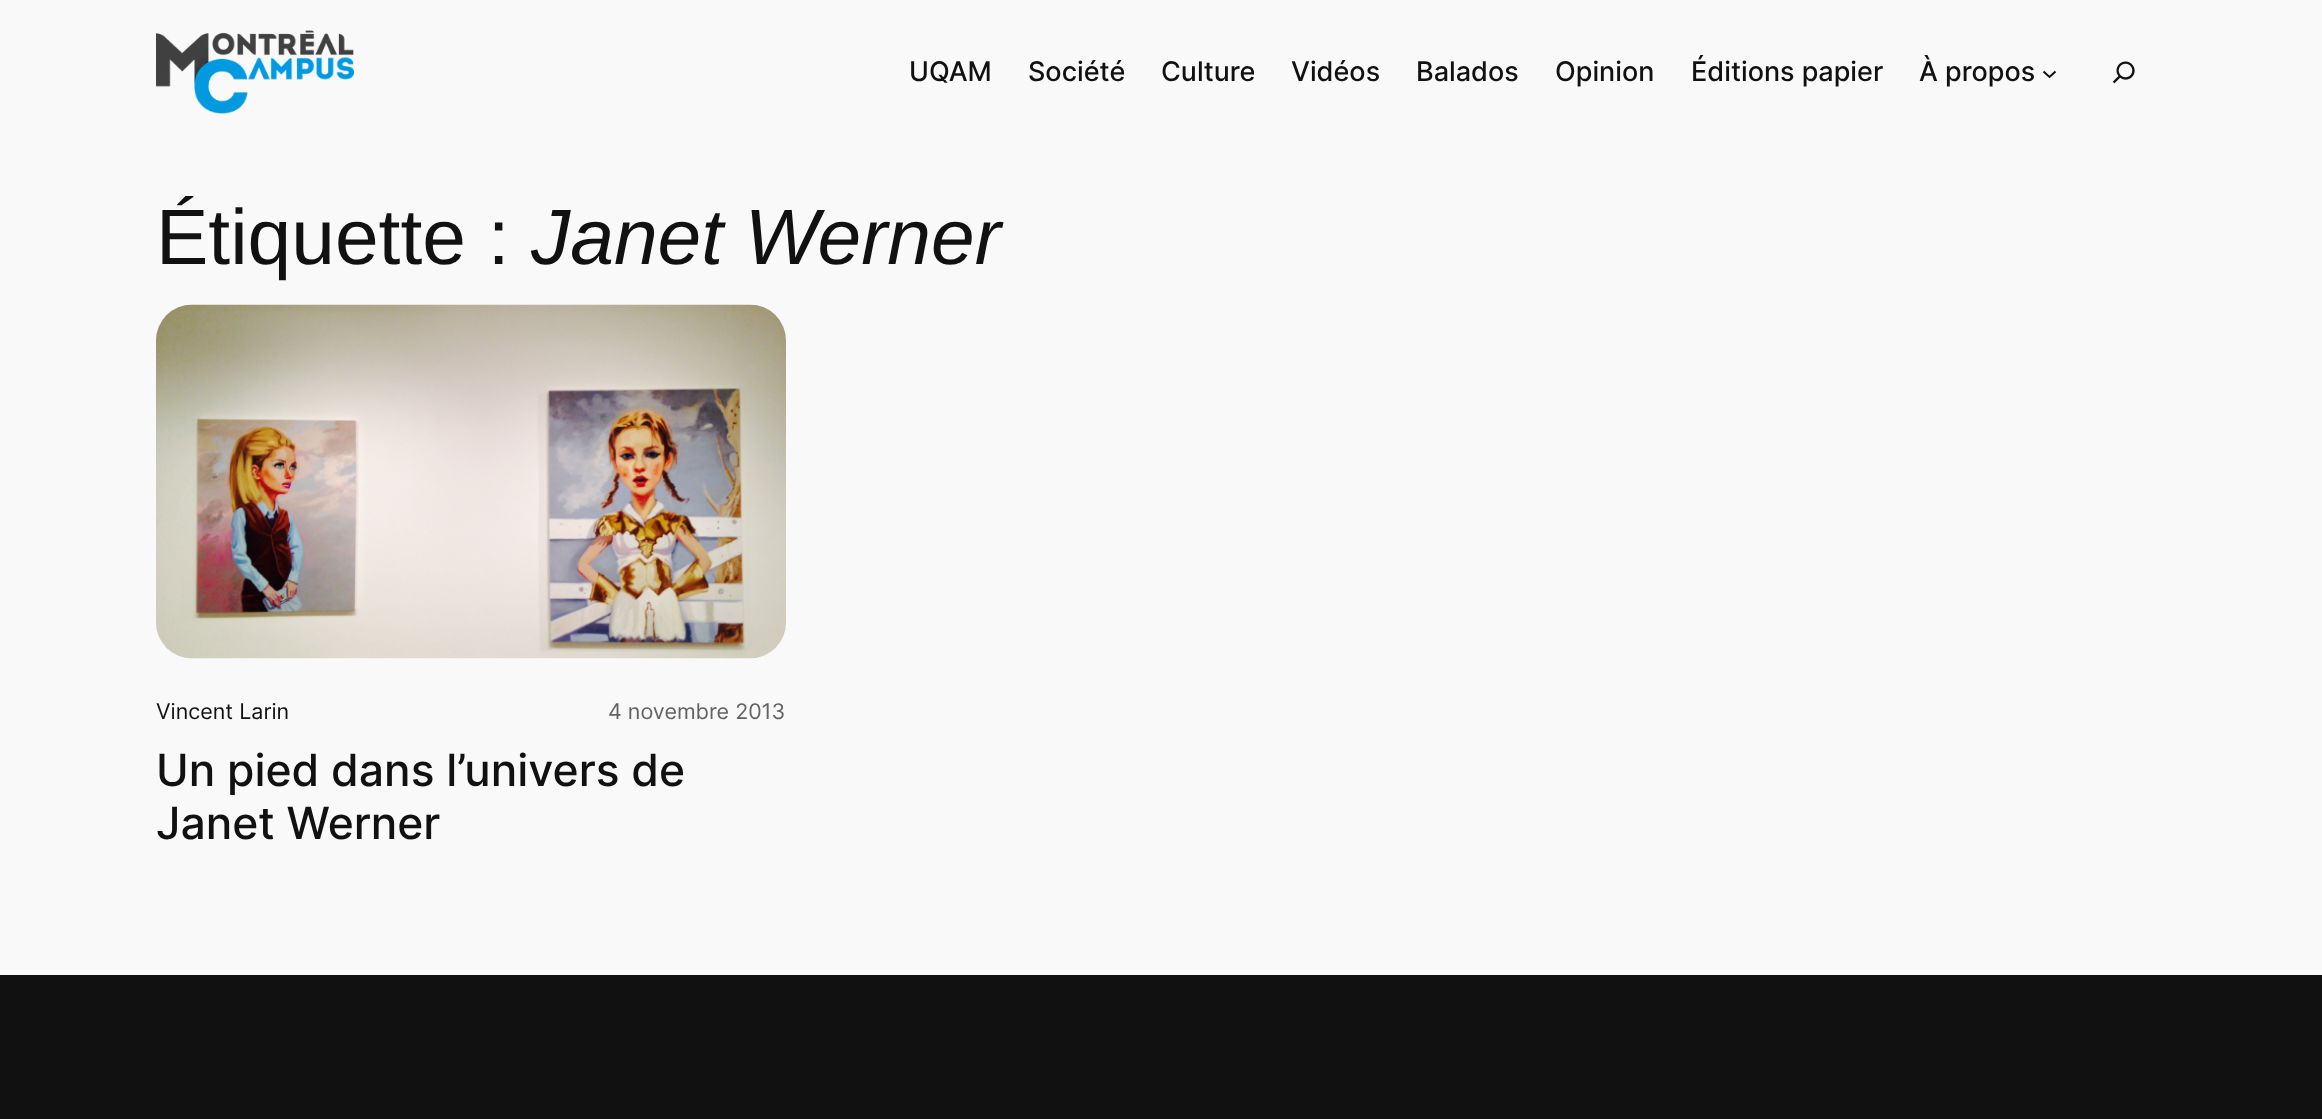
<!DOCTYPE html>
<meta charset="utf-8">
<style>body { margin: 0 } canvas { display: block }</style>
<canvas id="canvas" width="2322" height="1119"></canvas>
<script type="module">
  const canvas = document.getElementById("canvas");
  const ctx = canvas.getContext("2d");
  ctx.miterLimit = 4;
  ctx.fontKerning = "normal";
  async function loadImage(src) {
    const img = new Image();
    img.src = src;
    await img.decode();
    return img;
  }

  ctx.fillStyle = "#f9f9f9";
  ctx.fillRect(0, 0, 2322, 1119);
  ctx.drawImage(await loadImage("img1.png"), 156, 30, 198, 84);
  ctx.font = "500 27px Inter";
  ctx.fillStyle = "#111111";
  ctx.fillText("UQAM", 909, 81);
  ctx.fillText("Société", 1028, 81);
  ctx.fillText("Culture", 1161, 81);
  ctx.fillText("Vidéos", 1291, 81);
  ctx.fillText("Balados", 1416, 81);
  ctx.fillText("Opinion", 1555, 81);
  ctx.fillText("Éditions papier", 1691, 81);
  ctx.fillText("À propos", 1919, 81);
  ctx.beginPath();
  ctx.moveTo(2043.5, 71.5);
  ctx.lineTo(2049.5, 77);
  ctx.lineTo(2055.5, 71.5);
  ctx.strokeStyle = "#111111";
  ctx.lineWidth = 2;
  ctx.stroke();
  ctx.drawImage(await loadImage("img2.png"), 2112, 61, 23, 23);
  ctx.font = "78.5px Liberation Sans";
  ctx.fillText("Étiquette :", 156, 264);
  ctx.font = "italic 78.5px Liberation Sans";
  ctx.fillText("Janet Werner", 531, 264);
  ctx.drawImage(await loadImage("img3.png"), 156, 304, 630, 355);
  ctx.font = "21.5px Inter";
  ctx.fillText("Vincent Larin", 156, 719);
  ctx.fillStyle = "#636363";
  ctx.fillText("4 novembre 2013", 608, 719);
  ctx.font = "500 44.4px Inter";
  ctx.fillStyle = "#111111";
  ctx.fillText("Un pied dans l’univers de", 156, 786);
  ctx.fillText("Janet Werner", 156, 839);
  ctx.fillRect(0, 975, 2322, 144);
</script>
